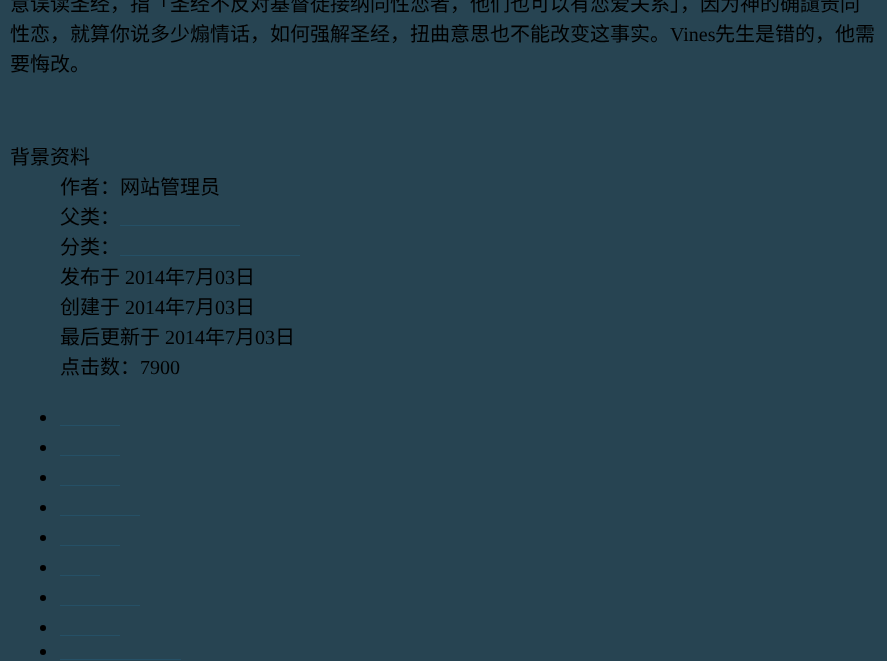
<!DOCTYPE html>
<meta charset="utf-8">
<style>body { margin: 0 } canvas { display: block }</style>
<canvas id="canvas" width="887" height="661"></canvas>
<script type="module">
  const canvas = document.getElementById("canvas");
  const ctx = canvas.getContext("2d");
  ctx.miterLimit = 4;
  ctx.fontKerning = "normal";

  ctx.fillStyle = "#274452";
  ctx.fillRect(0, 0, 887, 661);
  ctx.font = "20px Noto Sans CJK SC";
  ctx.fillStyle = "#000000";
  ctx.fillText("意误读圣经，指「圣经不反对基督徒接纳同性恋者，他们也可以有恋爱关系」，因为神的确讉责同", 10, 11);
  ctx.fillText("性恋，就算你说多少煽情话，如何强解圣经，扭曲意思也不能改变这事实。", 10, 41);
  ctx.font = "20px Liberation Serif";
  ctx.fillText("Vines", 670, 41);
  ctx.font = "20px Noto Sans CJK SC";
  ctx.fillText("先生是错的，他需", 715, 41);
  ctx.fillText("要悔改。", 10, 71);
  ctx.fillText("背景资料", 10, 164);
  ctx.fillText("作者：网站管理员", 60, 194);
  ctx.fillText("父类：", 60, 224);
  ctx.fillStyle = "#255066";
  ctx.fillRect(120, 225, 120, 1);
  ctx.fillStyle = "#000000";
  ctx.fillText("分类：", 60, 254);
  ctx.fillStyle = "#255066";
  ctx.fillRect(120, 255, 180, 1);
  ctx.fillStyle = "#000000";
  ctx.fillText("发布于", 60, 284);
  ctx.font = "20px Liberation Serif";
  ctx.fillText("2014", 125, 284);
  ctx.font = "20px Noto Sans CJK SC";
  ctx.fillText("年", 165, 284);
  ctx.font = "20px Liberation Serif";
  ctx.fillText("7", 185, 284);
  ctx.font = "20px Noto Sans CJK SC";
  ctx.fillText("月", 195, 284);
  ctx.font = "20px Liberation Serif";
  ctx.fillText("03", 215, 284);
  ctx.font = "20px Noto Sans CJK SC";
  ctx.fillText("日", 235, 284);
  ctx.fillText("创建于", 60, 314);
  ctx.font = "20px Liberation Serif";
  ctx.fillText("2014", 125, 314);
  ctx.font = "20px Noto Sans CJK SC";
  ctx.fillText("年", 165, 314);
  ctx.font = "20px Liberation Serif";
  ctx.fillText("7", 185, 314);
  ctx.font = "20px Noto Sans CJK SC";
  ctx.fillText("月", 195, 314);
  ctx.font = "20px Liberation Serif";
  ctx.fillText("03", 215, 314);
  ctx.font = "20px Noto Sans CJK SC";
  ctx.fillText("日", 235, 314);
  ctx.fillText("最后更新于", 60, 344);
  ctx.font = "20px Liberation Serif";
  ctx.fillText("2014", 165, 344);
  ctx.font = "20px Noto Sans CJK SC";
  ctx.fillText("年", 205, 344);
  ctx.font = "20px Liberation Serif";
  ctx.fillText("7", 225, 344);
  ctx.font = "20px Noto Sans CJK SC";
  ctx.fillText("月", 235, 344);
  ctx.font = "20px Liberation Serif";
  ctx.fillText("03", 255, 344);
  ctx.font = "20px Noto Sans CJK SC";
  ctx.fillText("日", 275, 344);
  ctx.fillText("点击数：", 60, 374);
  ctx.font = "20px Liberation Serif";
  ctx.fillText("7900", 140, 374);
  ctx.beginPath();
  ctx.arc(43, 418, 3, 0, Math.PI * 2);
  ctx.fill();
  ctx.fillStyle = "#255066";
  ctx.fillRect(60, 425, 60, 1);
  ctx.fillStyle = "#000000";
  ctx.beginPath();
  ctx.arc(43, 448, 3, 0, Math.PI * 2);
  ctx.fill();
  ctx.fillStyle = "#255066";
  ctx.fillRect(60, 455, 60, 1);
  ctx.fillStyle = "#000000";
  ctx.beginPath();
  ctx.arc(43, 478, 3, 0, Math.PI * 2);
  ctx.fill();
  ctx.fillStyle = "#255066";
  ctx.fillRect(60, 485, 60, 1);
  ctx.fillStyle = "#000000";
  ctx.beginPath();
  ctx.arc(43, 508, 3, 0, Math.PI * 2);
  ctx.fill();
  ctx.fillStyle = "#255066";
  ctx.fillRect(60, 515, 80, 1);
  ctx.fillStyle = "#000000";
  ctx.beginPath();
  ctx.arc(43, 538, 3, 0, Math.PI * 2);
  ctx.fill();
  ctx.fillStyle = "#255066";
  ctx.fillRect(60, 545, 60, 1);
  ctx.fillStyle = "#000000";
  ctx.beginPath();
  ctx.arc(43, 568, 3, 0, Math.PI * 2);
  ctx.fill();
  ctx.fillStyle = "#255066";
  ctx.fillRect(60, 575, 40, 1);
  ctx.fillStyle = "#000000";
  ctx.beginPath();
  ctx.arc(43, 598, 3, 0, Math.PI * 2);
  ctx.fill();
  ctx.fillStyle = "#255066";
  ctx.fillRect(60, 605, 80, 1);
  ctx.fillStyle = "#000000";
  ctx.beginPath();
  ctx.arc(43, 628, 3, 0, Math.PI * 2);
  ctx.fill();
  ctx.fillStyle = "#255066";
  ctx.fillRect(60, 635, 60, 1);
  ctx.fillStyle = "#000000";
  ctx.beginPath();
  ctx.arc(43, 652, 3, 0, Math.PI * 2);
  ctx.fill();
  ctx.fillStyle = "#255066";
  ctx.fillRect(60, 659, 121, 1);
</script>
